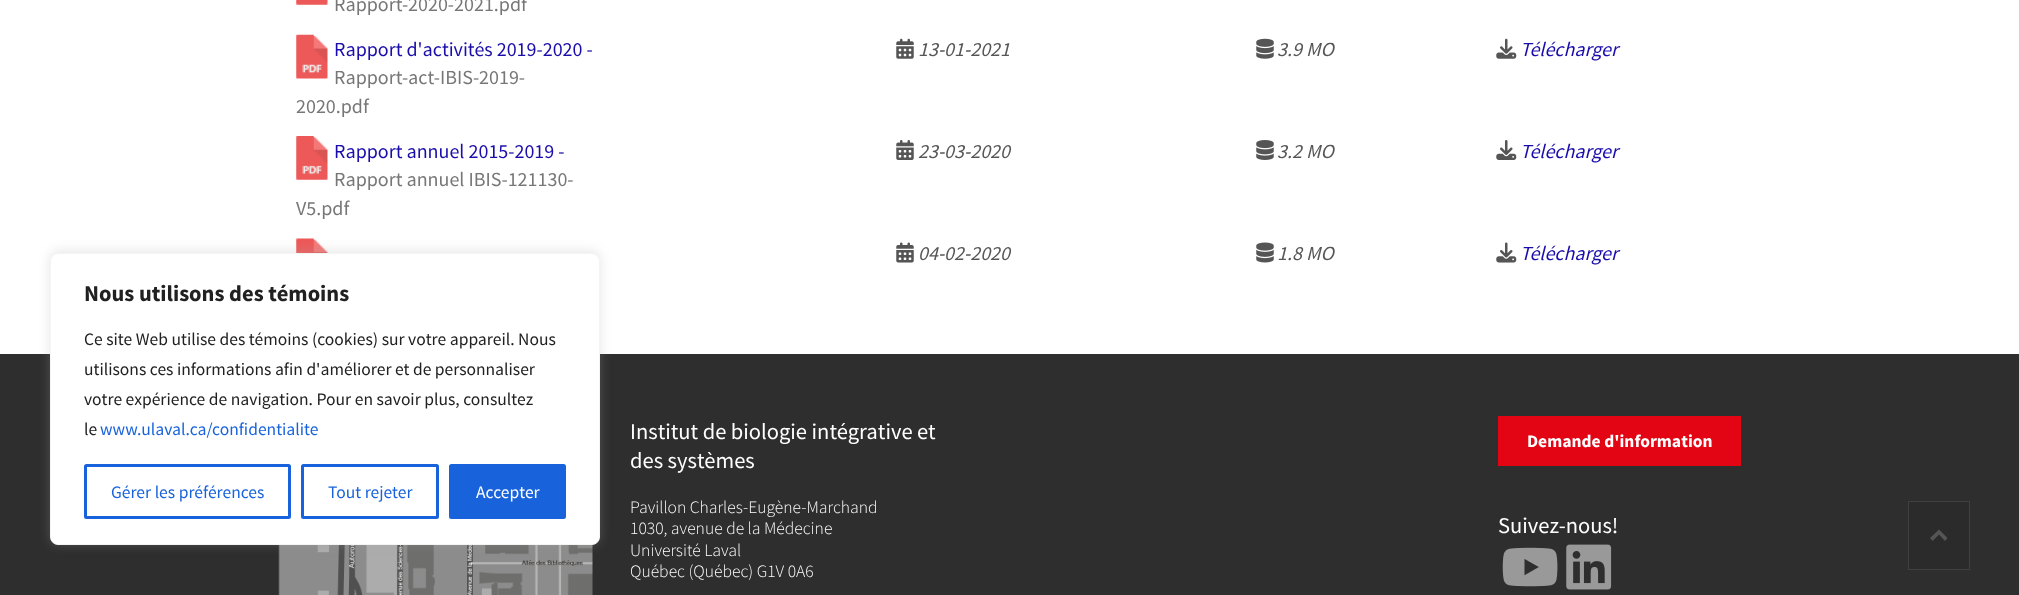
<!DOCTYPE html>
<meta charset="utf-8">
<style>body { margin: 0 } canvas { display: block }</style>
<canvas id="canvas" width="2019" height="595"></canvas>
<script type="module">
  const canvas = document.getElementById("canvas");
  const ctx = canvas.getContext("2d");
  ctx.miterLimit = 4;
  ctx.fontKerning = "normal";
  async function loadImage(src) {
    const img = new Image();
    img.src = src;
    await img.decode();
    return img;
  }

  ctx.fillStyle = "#ffffff";
  ctx.fillRect(0, 0, 2019, 595);
  ctx.drawImage(await loadImage("img1.png"), 296, 0, 32, 5);
  ctx.font = "20px Source Sans Pro";
  ctx.fillStyle = "#777777";
  ctx.fillText("Rapport-2020-2021.pdf", 334, 11);
  ctx.drawImage(await loadImage("img2.png"), 296, 34, 32, 45);
  ctx.fillStyle = "#1a0dab";
  ctx.fillText("Rapport d'activités 2019-2020 -", 334, 56);
  ctx.fillStyle = "#777777";
  ctx.fillText("Rapport-act-IBIS-2019-", 334, 84);
  ctx.fillText("2020.pdf", 296, 113);
  ctx.drawImage(await loadImage("img3.png"), 896, 38, 18, 21);
  ctx.font = "italic 20px Source Sans Pro";
  ctx.fillStyle = "#565656";
  ctx.fillText("13-01-2021", 918, 56);
  ctx.drawImage(await loadImage("img4.png"), 1256, 38, 18, 21);
  ctx.fillText("3.9 MO", 1277, 56);
  ctx.drawImage(await loadImage("img5.png"), 1496, 38, 21, 21);
  ctx.fillStyle = "#1a0dab";
  ctx.fillText("Télécharger", 1520, 56);
  ctx.drawImage(await loadImage("img6.png"), 296, 136, 32, 44);
  ctx.font = "20px Source Sans Pro";
  ctx.fillText("Rapport annuel 2015-2019 -", 334, 158);
  ctx.fillStyle = "#777777";
  ctx.fillText("Rapport annuel IBIS-121130-", 334, 186);
  ctx.fillText("V5.pdf", 296, 215);
  ctx.drawImage(await loadImage("img7.png"), 896, 140, 18, 20);
  ctx.font = "italic 20px Source Sans Pro";
  ctx.fillStyle = "#565656";
  ctx.fillText("23-03-2020", 918, 158);
  ctx.drawImage(await loadImage("img8.png"), 1256, 140, 18, 20);
  ctx.fillText("3.2 MO", 1277, 158);
  ctx.drawImage(await loadImage("img9.png"), 1496, 140, 21, 20);
  ctx.fillStyle = "#1a0dab";
  ctx.fillText("Télécharger", 1520, 158);
  ctx.drawImage(await loadImage("img10.png"), 296, 238, 32, 15);
  ctx.drawImage(await loadImage("img11.png"), 896, 242, 18, 21);
  ctx.fillStyle = "#565656";
  ctx.fillText("04-02-2020", 918, 260);
  ctx.drawImage(await loadImage("img12.png"), 1256, 242, 18, 21);
  ctx.fillText("1.8 MO", 1277, 260);
  ctx.drawImage(await loadImage("img13.png"), 1496, 242, 21, 21);
  ctx.fillStyle = "#1a0dab";
  ctx.fillText("Télécharger", 1520, 260);
  ctx.fillStyle = "#2e2e2e";
  ctx.fillRect(0, 354, 2019, 241);
  ctx.drawImage(await loadImage("img14.png"), 278, 544, 315, 51);
  ctx.font = "22.5px Source Sans Pro";
  ctx.fillStyle = "#ffffff";
  ctx.fillText("Institut de biologie intégrative et", 630, 439);
  ctx.fillText("des systèmes", 630, 468);
  ctx.font = "300 17.5px Source Sans Pro";
  ctx.fillText("Pavillon Charles-Eugène-Marchand", 630, 513);
  ctx.fillText("1030, avenue de la Médecine", 630, 534);
  ctx.fillText("Université Laval", 630, 556);
  ctx.fillText("Québec (Québec) G1V 0A6", 630, 577);
  ctx.fillStyle = "#e30513";
  ctx.fillRect(1498, 416, 243, 50);
  ctx.font = "bold 17.5px Source Sans Pro";
  ctx.fillStyle = "#ffffff";
  ctx.fillText("Demande d'information", 1527, 447);
  ctx.font = "22.5px Source Sans Pro";
  ctx.fillText("Suivez-nous!", 1498, 533);
  ctx.drawImage(await loadImage("img15.png"), 1502, 547, 56, 40);
  ctx.drawImage(await loadImage("img16.png"), 1566, 544, 46, 46);
  ctx.fillStyle = "rgba(0, 0, 0, 0.06)";
  ctx.fillRect(1908, 501, 62, 69);
  ctx.strokeStyle = "rgba(255, 255, 255, 0.1)";
  ctx.strokeRect(1908.5, 501.5, 61, 68);
  ctx.fillStyle = "#555555";
  ctx.beginPath();
  ctx.moveTo(1930, 538);
  ctx.lineTo(1939, 529.5);
  ctx.lineTo(1947.5, 538);
  ctx.lineTo(1945, 541);
  ctx.lineTo(1939, 534.5);
  ctx.lineTo(1932.5, 541);
  ctx.closePath();
  ctx.fill();
  ctx.fillStyle = "rgba(172, 171, 171, 0.3)";
  ctx.filter = "blur(6px)";
  ctx.beginPath();
  ctx.roundRect(50, 251, 550, 293, 8);
  ctx.fill();
  ctx.filter = "none";
  ctx.fillStyle = "#ffffff";
  ctx.beginPath();
  ctx.roundRect(50.5, 253.5, 549, 291, 7.5);
  ctx.fill();
  ctx.strokeStyle = "#f4f4f4";
  ctx.stroke();
  ctx.font = "bold 22.5px Source Sans Pro";
  ctx.fillStyle = "#212121";
  ctx.fillText("Nous utilisons des témoins", 84, 301);
  ctx.font = "17.5px Source Sans Pro";
  ctx.fillText("Ce site Web utilise des témoins (cookies) sur votre appareil. Nous", 84, 345);
  ctx.fillText("utilisons ces informations afin d'améliorer et de personnaliser", 84, 375);
  ctx.fillText("votre expérience de navigation. Pour en savoir plus, consultez", 84, 405);
  ctx.fillText("le", 84, 435);
  ctx.fillStyle = "#1863dc";
  ctx.fillText("www.ulaval.ca/confidentialite", 100, 435);
  ctx.beginPath();
  ctx.roundRect(85.5, 465.5, 204, 52, 1);
  ctx.strokeStyle = "#1863dc";
  ctx.lineWidth = 3;
  ctx.stroke();
  ctx.fillText("Gérer les préférences", 111, 498);
  ctx.beginPath();
  ctx.roundRect(302.5, 465.5, 135, 52, 1);
  ctx.stroke();
  ctx.fillText("Tout rejeter", 328, 498);
  ctx.beginPath();
  ctx.roundRect(450.5, 465.5, 114, 52, 1);
  ctx.fill();
  ctx.stroke();
  ctx.fillStyle = "#ffffff";
  ctx.fillText("Accepter", 476, 498);
</script>
